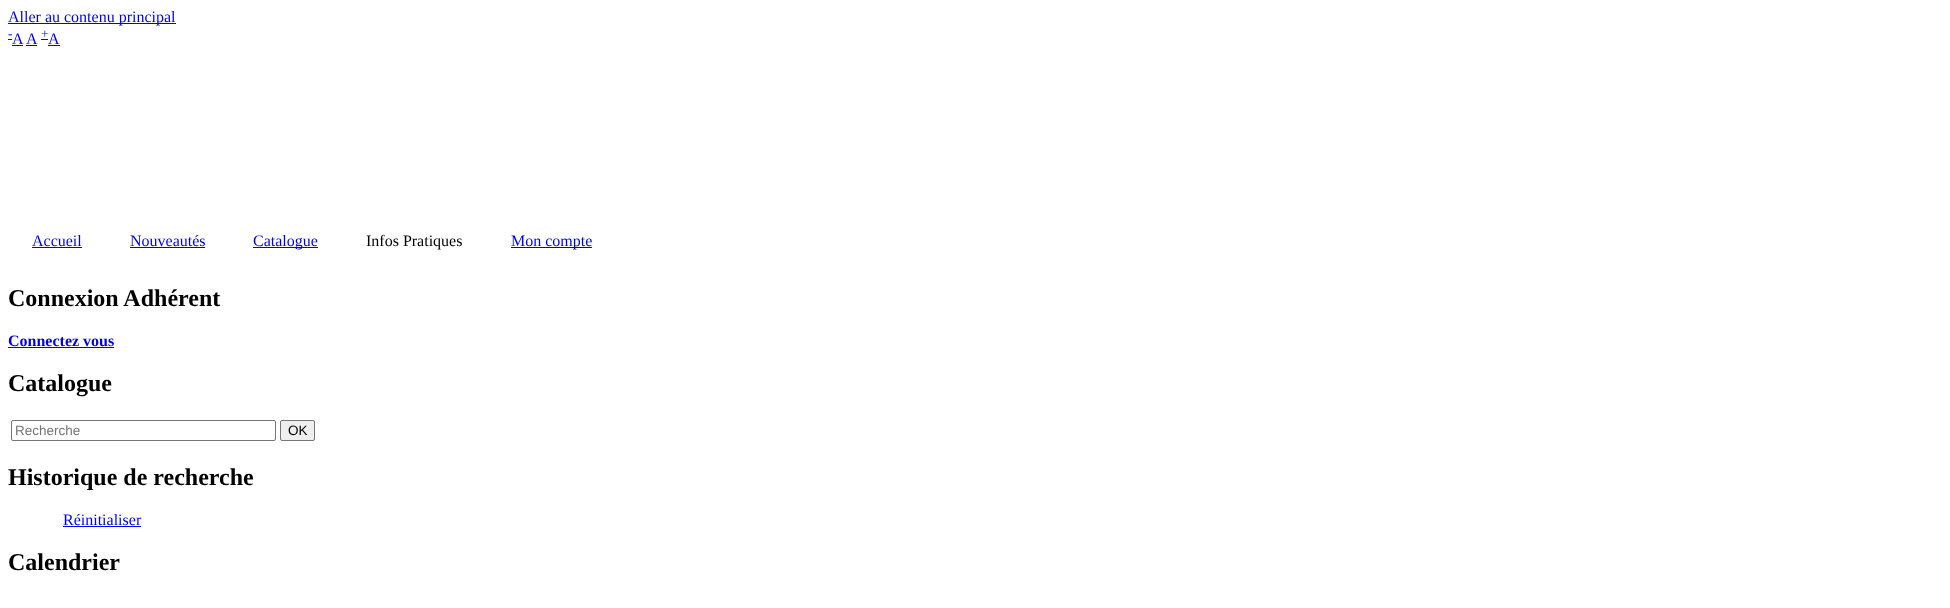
<!DOCTYPE html>
<meta charset="utf-8">
<style>body { margin: 0 } canvas { display: block }</style>
<canvas id="canvas" width="1950" height="608"></canvas>
<script type="module">
  const canvas = document.getElementById("canvas");
  const ctx = canvas.getContext("2d");
  ctx.miterLimit = 4;
  ctx.fontKerning = "normal";

  ctx.fillStyle = "#ffffff";
  ctx.fillRect(0, 0, 1950, 608);
  ctx.fillStyle = "#0000ee";
  ctx.fillRect(8, 23, 168, 1);
  ctx.font = "16px Liberation Serif";
  ctx.fillText("Aller au contenu principal", 8, 22);
  ctx.font = "13.5px Liberation Serif";
  ctx.fillText("-", 8, 38);
  ctx.font = "16px Liberation Serif";
  ctx.fillText("A", 12, 44);
  ctx.fillRect(8, 39, 4, 1);
  ctx.fillRect(12, 45, 11, 1);
  ctx.fillText("A", 26, 44);
  ctx.fillRect(26, 45, 11, 1);
  ctx.font = "13.5px Liberation Serif";
  ctx.fillText("+", 41, 38);
  ctx.font = "16px Liberation Serif";
  ctx.fillText("A", 48, 44);
  ctx.fillRect(41, 39, 7, 1);
  ctx.fillRect(48, 45, 12, 1);
  ctx.fillText("Accueil", 32, 246);
  ctx.fillRect(32, 247, 50, 1);
  ctx.fillText("Nouveautés", 130, 246);
  ctx.fillRect(130, 247, 75, 1);
  ctx.fillRect(253, 247, 65, 1);
  ctx.fillText("Catalogue", 253, 246);
  ctx.fillStyle = "#000000";
  ctx.fillText("Infos Pratiques", 366, 246);
  ctx.fillStyle = "#0000ee";
  ctx.fillRect(511, 247, 81, 1);
  ctx.fillText("Mon compte", 511, 246);
  ctx.font = "bold 24px Liberation Serif";
  ctx.fillStyle = "#000000";
  ctx.fillText("Connexion Adhérent", 8, 306);
  ctx.font = "bold 16px Liberation Serif";
  ctx.fillStyle = "#0000ee";
  ctx.fillText("Connectez vous", 8, 346);
  ctx.fillRect(8, 347, 106, 1);
  ctx.font = "bold 24px Liberation Serif";
  ctx.fillStyle = "#000000";
  ctx.fillText("Catalogue", 8, 391);
  ctx.beginPath();
  ctx.roundRect(11.5, 420.5, 264, 20, 1.5);
  ctx.strokeStyle = "#767676";
  ctx.stroke();
  ctx.font = "13.5px Liberation Sans";
  ctx.fillStyle = "#757575";
  ctx.fillText("Recherche", 15, 435);
  ctx.fillStyle = "#efefef";
  ctx.beginPath();
  ctx.roundRect(280.5, 420.5, 34, 20, 1.5);
  ctx.fill();
  ctx.stroke();
  ctx.fillStyle = "#000000";
  ctx.fillText("OK", 288, 435);
  ctx.font = "bold 24px Liberation Serif";
  ctx.fillText("Historique de recherche", 8, 485);
  ctx.font = "16px Liberation Serif";
  ctx.fillStyle = "#0000ee";
  ctx.fillText("Réinitialiser", 63, 525);
  ctx.fillRect(63, 526, 78, 1);
  ctx.font = "bold 24px Liberation Serif";
  ctx.fillStyle = "#000000";
  ctx.fillText("Calendrier", 8, 570);
</script>
